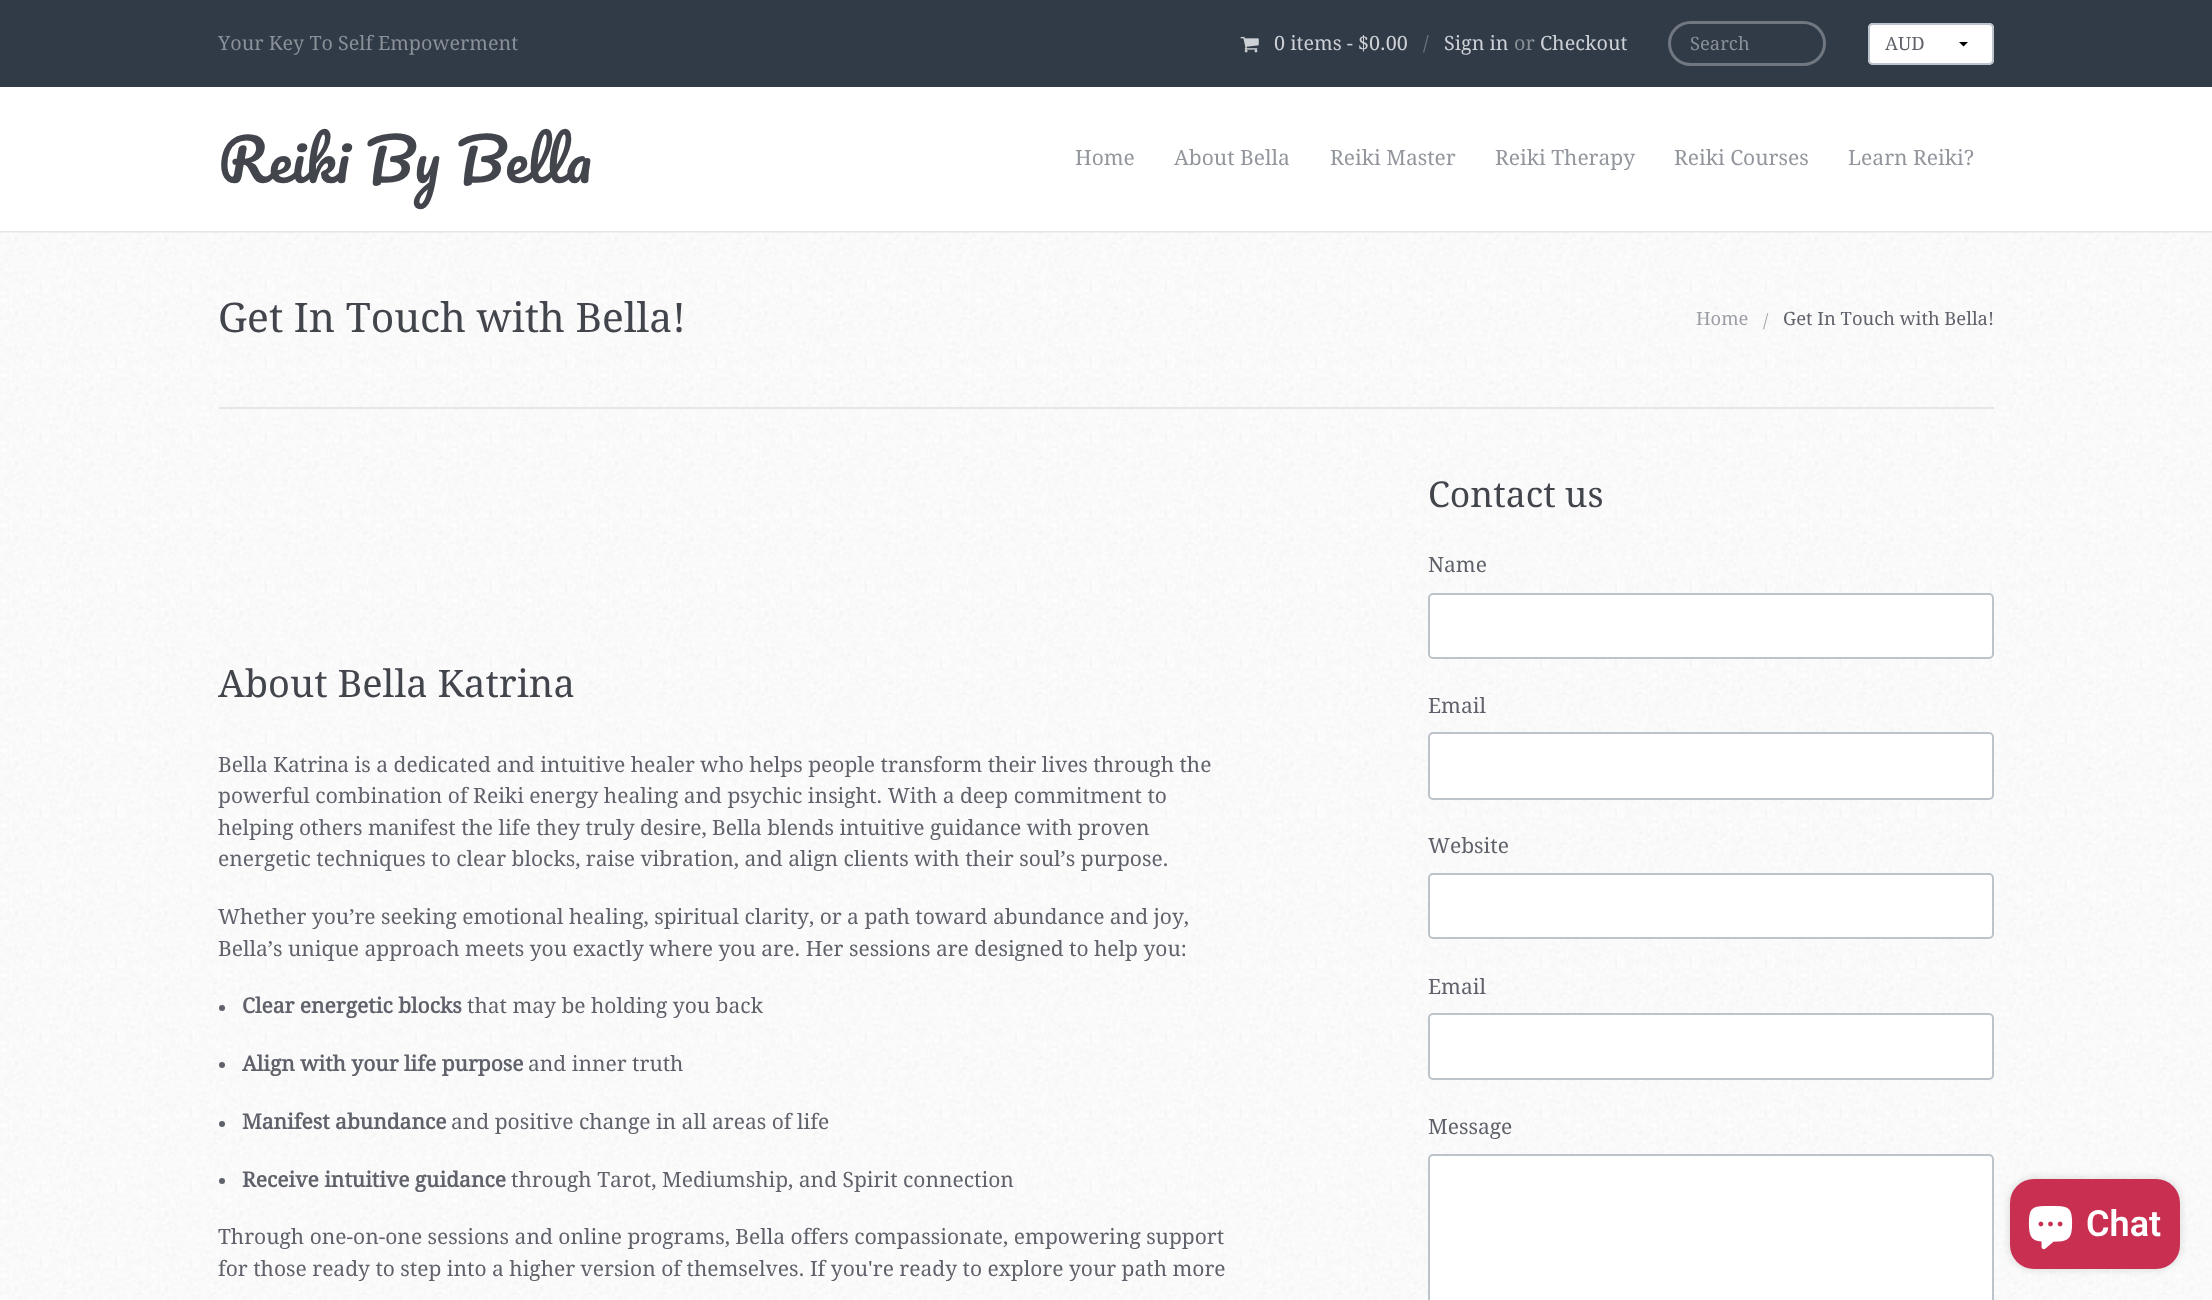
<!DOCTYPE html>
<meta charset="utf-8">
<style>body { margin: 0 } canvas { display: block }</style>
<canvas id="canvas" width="2212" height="1300"></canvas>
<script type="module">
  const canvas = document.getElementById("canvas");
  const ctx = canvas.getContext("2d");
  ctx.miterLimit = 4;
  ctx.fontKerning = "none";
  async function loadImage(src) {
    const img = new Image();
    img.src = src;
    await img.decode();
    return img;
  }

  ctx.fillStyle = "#313a47";
  ctx.fillRect(0, 0, 2212, 1300);
  ctx.font = "19.75px Droid Serif";
  ctx.fillStyle = "#8a9098";
  ctx.fillText("Your Key To Self Empowerment", 218, 50);
  ctx.drawImage(await loadImage("img1.png"), 1240, 36, 19, 17);
  ctx.fillStyle = "#cdd1d6";
  ctx.fillText("0 items - $0.00", 1274, 50);
  ctx.fillStyle = "#6f7680";
  ctx.fillText("/", 1423, 50);
  ctx.fillStyle = "#cdd1d6";
  ctx.fillText("Sign in", 1444, 50);
  ctx.fillStyle = "#8a9098";
  ctx.fillText("or", 1514, 50);
  ctx.fillStyle = "#cdd1d6";
  ctx.fillText("Checkout", 1540, 50);
  ctx.beginPath();
  ctx.roundRect(1669.5, 22.5, 155, 42, 21);
  ctx.strokeStyle = "#707780";
  ctx.lineWidth = 3;
  ctx.stroke();
  ctx.font = "18.4px Droid Serif";
  ctx.fillStyle = "#8a9098";
  ctx.fillText("Search", 1690, 50);
  ctx.fillStyle = "#ffffff";
  ctx.beginPath();
  ctx.roundRect(1868, 23, 126, 42, 5);
  ctx.fill();
  ctx.fillStyle = "#000000";
  ctx.beginPath();
  ctx.moveTo(1968, 42);
  ctx.lineTo(1963.5, 46.5);
  ctx.lineTo(1959, 42);
  ctx.closePath();
  ctx.fill();
  ctx.beginPath();
  ctx.roundRect(1869, 24, 124, 40, 4);
  ctx.strokeStyle = "#bcc3ca";
  ctx.lineWidth = 2;
  ctx.stroke();
  ctx.fillStyle = "#60626b";
  ctx.fillText("AUD", 1885, 50);
  ctx.fillStyle = "#ffffff";
  ctx.fillRect(0, 87, 2212, 144);
  ctx.fillStyle = "#e4e5e6";
  ctx.fillRect(0, 231, 2212, 2);
  ctx.wordSpacing = "2px";
  ctx.font = "57.75px Pacifico";
  ctx.fillStyle = "#43454d";
  ctx.fillText("Reiki By Bella", 218, 183);
  ctx.wordSpacing = "0px";
  ctx.font = "21px Droid Serif";
  ctx.fillStyle = "#93979d";
  ctx.fillText("Home", 1075, 165);
  ctx.fillText("About Bella", 1174, 165);
  ctx.fillText("Reiki Master", 1330, 165);
  ctx.fillText("Reiki Therapy", 1495, 165);
  ctx.fillText("Reiki Courses", 1674, 165);
  ctx.fillText("Learn Reiki?", 1848, 165);
  ctx.drawImage(await loadImage("img2.png"), 0, 232, 2212, 1068);
  ctx.fillStyle = "#e5e6e7";
  ctx.fillRect(219, 407, 1775, 2);
  ctx.font = "40.75px Droid Serif";
  ctx.fillStyle = "#43454d";
  ctx.fillText("Get In Touch with Bella!", 218, 332);
  ctx.font = "18.4px Droid Serif";
  ctx.fillStyle = "#9c9ea6";
  ctx.fillText("Home", 1696, 325);
  ctx.fillStyle = "#aaaaaa";
  ctx.fillText("/", 1763, 327);
  ctx.fillStyle = "#60626b";
  ctx.fillText("Get In Touch with Bella!", 1783, 325);
  ctx.font = "38px Droid Serif";
  ctx.fillStyle = "#43454d";
  ctx.fillText("About Bella Katrina", 218, 697);
  ctx.font = "21px Droid Serif";
  ctx.fillStyle = "#60626b";
  ctx.fillText("Bella Katrina is a dedicated and intuitive healer who helps people transform their lives through the", 218, 772);
  ctx.fillText("powerful combination of Reiki energy healing and psychic insight. With a deep commitment to", 218, 803);
  ctx.fillText("helping others manifest the life they truly desire, Bella blends intuitive guidance with proven", 218, 835);
  ctx.fillText("energetic techniques to clear blocks, raise vibration, and align clients with their soul’s purpose.", 218, 866);
  ctx.fillText("Whether you’re seeking emotional healing, spiritual clarity, or a path toward abundance and joy,", 218, 924);
  ctx.fillText("Bella’s unique approach meets you exactly where you are. Her sessions are designed to help you:", 218, 956);
  ctx.beginPath();
  ctx.arc(222, 1008, 3, 0, Math.PI * 2);
  ctx.fill();
  ctx.font = "bold 21px Droid Serif";
  ctx.fillText("Clear energetic blocks", 242, 1013);
  ctx.font = "21px Droid Serif";
  ctx.fillText("that may be holding you back", 467, 1013);
  ctx.beginPath();
  ctx.arc(222, 1065, 3, 0, Math.PI * 2);
  ctx.fill();
  ctx.font = "bold 21px Droid Serif";
  ctx.fillText("Align with your life purpose", 242, 1071);
  ctx.font = "21px Droid Serif";
  ctx.fillText("and inner truth", 528, 1071);
  ctx.beginPath();
  ctx.arc(222, 1124, 3, 0, Math.PI * 2);
  ctx.fill();
  ctx.font = "bold 21px Droid Serif";
  ctx.fillText("Manifest abundance", 242, 1129);
  ctx.font = "21px Droid Serif";
  ctx.fillText("and positive change in all areas of life", 451, 1129);
  ctx.beginPath();
  ctx.arc(222, 1181, 3, 0, Math.PI * 2);
  ctx.fill();
  ctx.font = "bold 21px Droid Serif";
  ctx.fillText("Receive intuitive guidance", 242, 1187);
  ctx.font = "21px Droid Serif";
  ctx.fillText("through Tarot, Mediumship, and Spirit connection", 511, 1187);
  ctx.fillText("Through one-on-one sessions and online programs, Bella offers compassionate, empowering support", 218, 1244);
  ctx.fillText("for those ready to step into a higher version of themselves. If you're ready to explore your path more", 218, 1276);
  ctx.font = "35.5px Droid Serif";
  ctx.fillStyle = "#43454d";
  ctx.fillText("Contact us", 1428, 507);
  ctx.font = "21px Droid Serif";
  ctx.fillStyle = "#60626b";
  ctx.fillText("Name", 1428, 572);
  ctx.fillStyle = "#ffffff";
  ctx.beginPath();
  ctx.roundRect(1429, 594, 564, 64, 4);
  ctx.fill();
  ctx.stroke();
  ctx.fillStyle = "#60626b";
  ctx.fillText("Email", 1428, 713);
  ctx.fillStyle = "#ffffff";
  ctx.beginPath();
  ctx.roundRect(1429, 733, 564, 66, 4);
  ctx.fill();
  ctx.stroke();
  ctx.fillStyle = "#60626b";
  ctx.fillText("Website", 1428, 853);
  ctx.fillStyle = "#ffffff";
  ctx.beginPath();
  ctx.roundRect(1429, 874, 564, 64, 4);
  ctx.fill();
  ctx.stroke();
  ctx.fillStyle = "#60626b";
  ctx.fillText("Email", 1428, 994);
  ctx.fillStyle = "#ffffff";
  ctx.beginPath();
  ctx.roundRect(1429, 1014, 564, 65, 4);
  ctx.fill();
  ctx.stroke();
  ctx.fillStyle = "#60626b";
  ctx.fillText("Message", 1428, 1134);
  ctx.fillStyle = "#ffffff";
  ctx.beginPath();
  ctx.roundRect(1429, 1155, 564, 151, 4);
  ctx.fill();
  ctx.stroke();
  ctx.fillStyle = "rgba(0, 0, 0, 0.15)";
  ctx.filter = "blur(4px)";
  ctx.beginPath();
  ctx.roundRect(2010, 1179, 170, 90, 24);
  ctx.fill();
  ctx.filter = "none";
  ctx.fillStyle = "#c92f51";
  ctx.beginPath();
  ctx.roundRect(2010, 1179, 170, 90, 24);
  ctx.fill();
  ctx.drawImage(await loadImage("img3.png"), 2028, 1206, 45, 44);
  ctx.font = "600 36px Roboto";
  ctx.fillStyle = "#ffffff";
  ctx.fillText("Chat", 2086, 1236);
</script>
